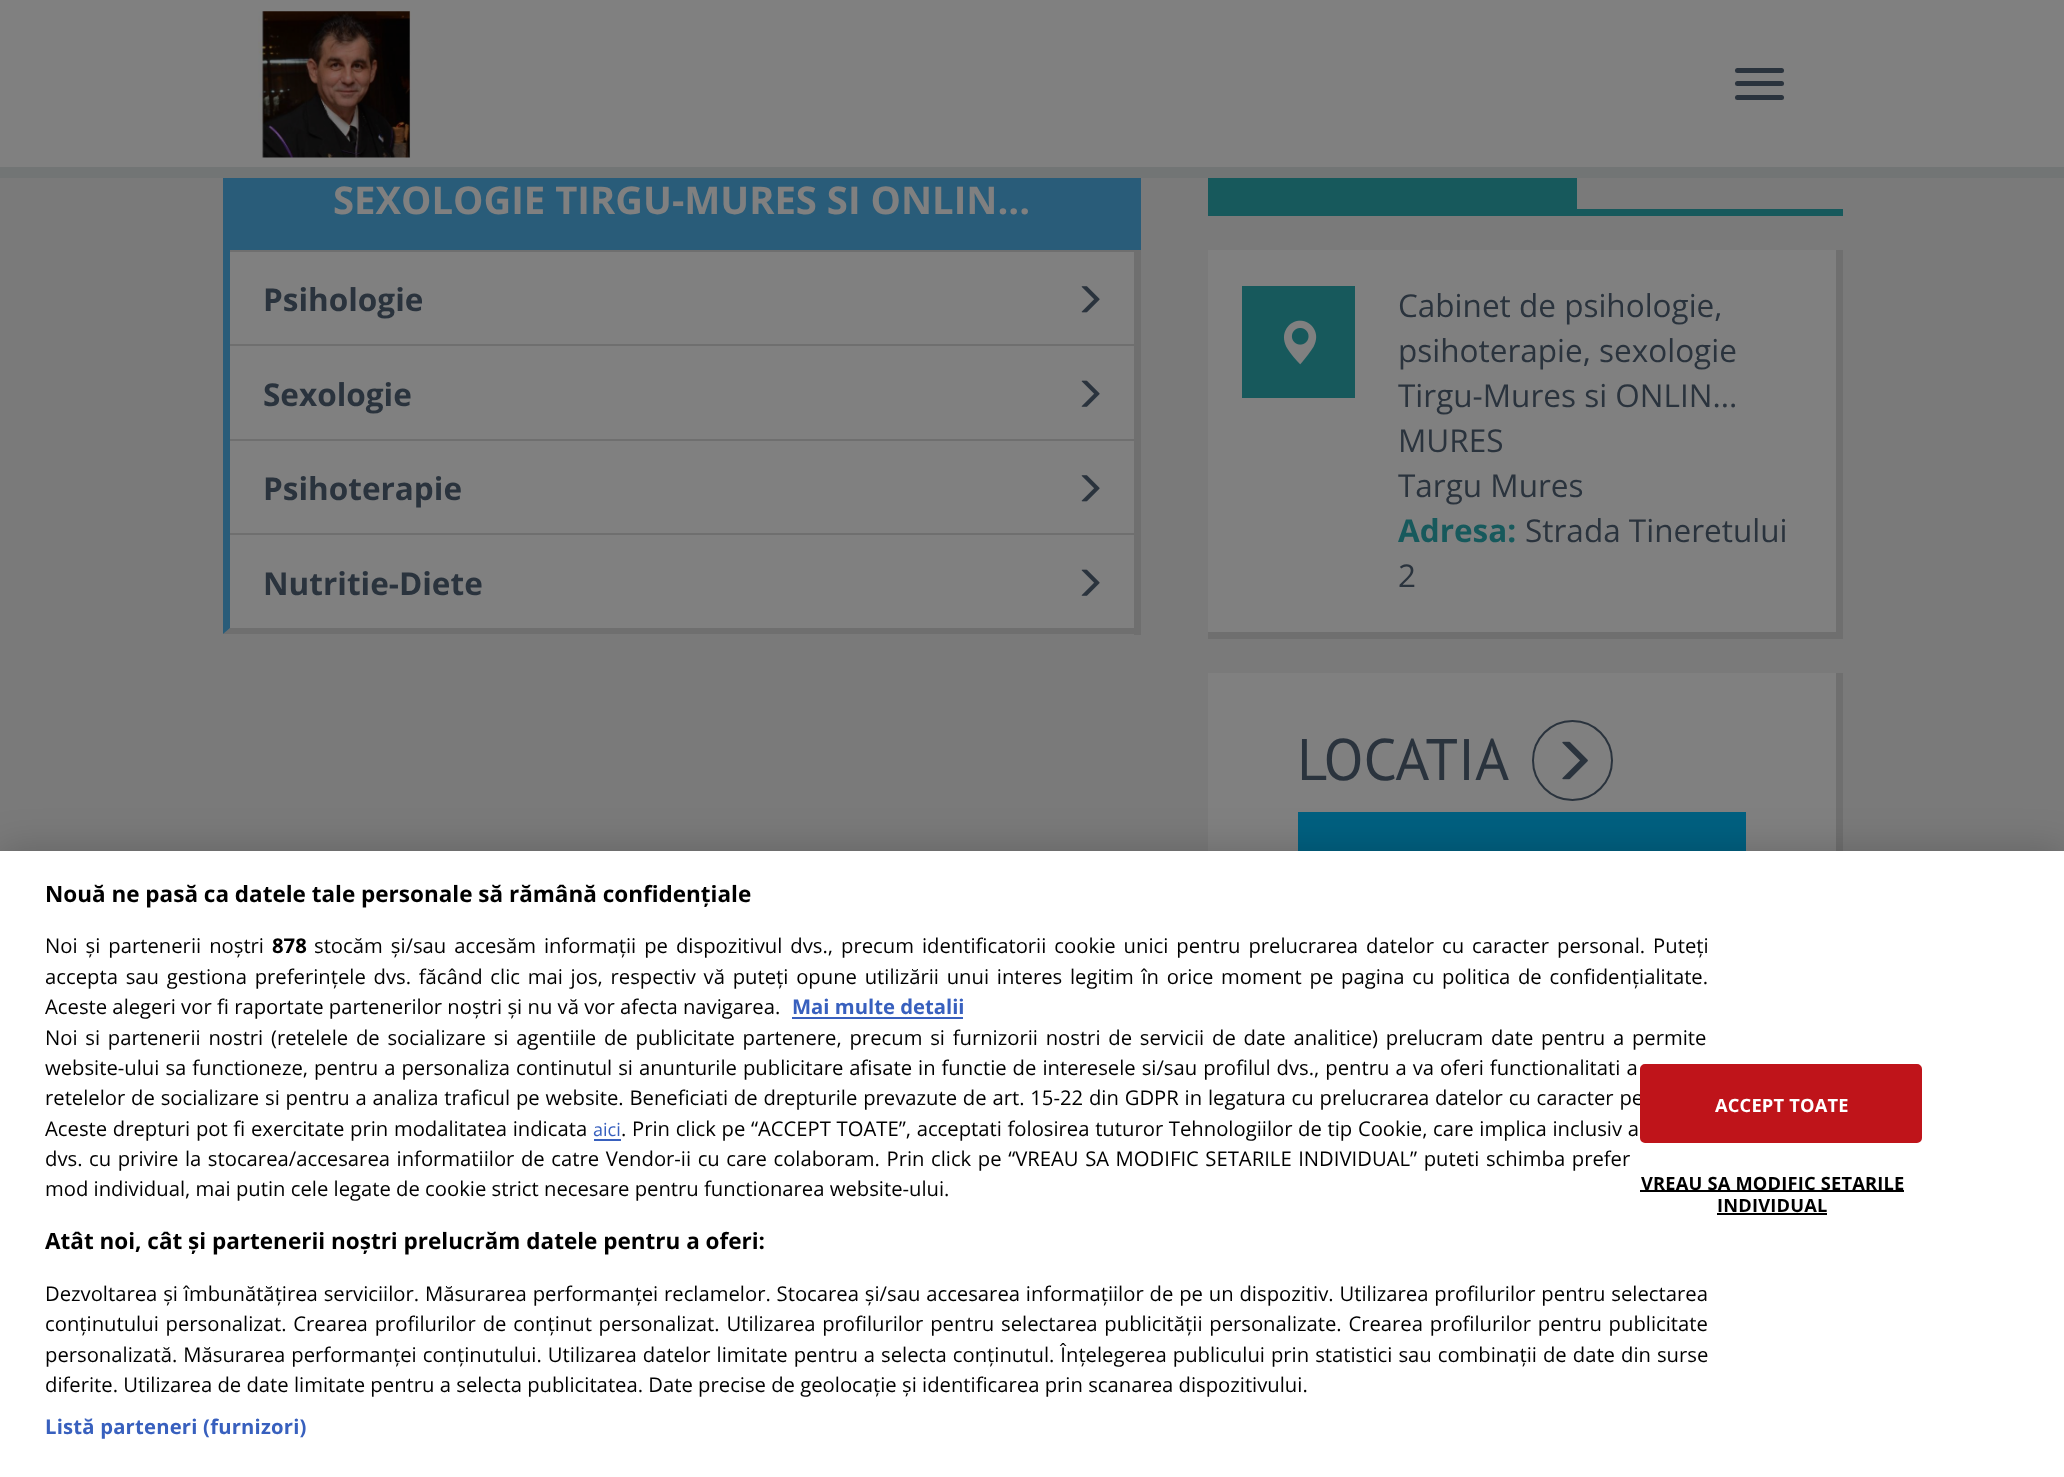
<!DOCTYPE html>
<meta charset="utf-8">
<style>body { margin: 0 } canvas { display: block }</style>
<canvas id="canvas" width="2064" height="1477"></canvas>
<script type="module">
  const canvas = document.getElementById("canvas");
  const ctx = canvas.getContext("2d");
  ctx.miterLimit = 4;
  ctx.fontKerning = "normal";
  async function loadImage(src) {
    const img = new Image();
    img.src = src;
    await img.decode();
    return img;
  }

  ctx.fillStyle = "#7a7a7a";
  ctx.fillRect(0, 0, 2064, 1477);
  ctx.fillStyle = "#808080";
  ctx.fillRect(0, 0, 2064, 167);
  ctx.fillStyle = "#727575";
  ctx.fillRect(0, 167, 2064, 11);
  ctx.drawImage(await loadImage("img1.png"), 258, 11, 153, 147);
  ctx.fillStyle = "#2a333d";
  ctx.beginPath();
  ctx.roundRect(1735, 68, 49, 5, 2.5);
  ctx.fill();
  ctx.beginPath();
  ctx.roundRect(1735, 81, 49, 5, 2.5);
  ctx.fill();
  ctx.beginPath();
  ctx.roundRect(1735, 95, 49, 5, 2.5);
  ctx.fill();
  ctx.fillStyle = "#295c79";
  ctx.fillRect(223, 178, 918, 72);
  ctx.font = "bold 38.25px Open Sans";
  ctx.fillStyle = "#808080";
  ctx.fillText("SEXOLOGIE TIRGU-MURES SI ONLIN...", 333, 214);
  ctx.fillStyle = "#6f6f6f";
  ctx.fillRect(1134, 250, 7, 385);
  ctx.beginPath();
  ctx.moveTo(1141, 634);
  ctx.lineTo(223, 634);
  ctx.lineTo(230, 628);
  ctx.lineTo(1134, 628);
  ctx.closePath();
  ctx.fill();
  ctx.fillStyle = "#295c79";
  ctx.beginPath();
  ctx.moveTo(223, 634);
  ctx.lineTo(223, 250);
  ctx.lineTo(230, 250);
  ctx.lineTo(230, 628);
  ctx.closePath();
  ctx.fill();
  ctx.fillStyle = "#808080";
  ctx.fillRect(230, 252, 904, 92);
  ctx.fillStyle = "#6f6f6f";
  ctx.fillRect(230, 250, 904, 2);
  ctx.font = "bold 31.5px Open Sans";
  ctx.fillStyle = "#2a333d";
  ctx.fillText("Psihologie", 263, 311);
  ctx.drawImage(await loadImage("img2.png"), 1081, 286, 19, 27);
  ctx.fillStyle = "#808080";
  ctx.fillRect(230, 346, 904, 93);
  ctx.fillStyle = "#6f6f6f";
  ctx.fillRect(230, 344, 904, 2);
  ctx.fillStyle = "#2a333d";
  ctx.fillText("Sexologie", 263, 406);
  ctx.drawImage(await loadImage("img3.png"), 1081, 380, 19, 27);
  ctx.fillStyle = "#808080";
  ctx.fillRect(230, 441, 904, 92);
  ctx.fillStyle = "#6f6f6f";
  ctx.fillRect(230, 439, 904, 2);
  ctx.fillStyle = "#2a333d";
  ctx.fillText("Psihoterapie", 263, 500);
  ctx.drawImage(await loadImage("img2.png"), 1081, 475, 19, 27);
  ctx.fillStyle = "#808080";
  ctx.fillRect(230, 535, 904, 93);
  ctx.fillStyle = "#6f6f6f";
  ctx.fillRect(230, 533, 904, 2);
  ctx.fillStyle = "#2a333d";
  ctx.fillText("Nutritie-Diete", 263, 595);
  ctx.drawImage(await loadImage("img3.png"), 1081, 569, 19, 27);
  ctx.fillStyle = "#17595c";
  ctx.fillRect(1208, 178, 369, 38);
  ctx.fillRect(1577, 209, 266, 7);
  ctx.fillStyle = "#808080";
  ctx.fillRect(1208, 250, 628, 382);
  ctx.fillStyle = "#6f6f6f";
  ctx.fillRect(1836, 250, 7, 389);
  ctx.fillRect(1208, 632, 635, 7);
  ctx.fillStyle = "#17595c";
  ctx.fillRect(1242, 286, 113, 112);
  ctx.drawImage(await loadImage("img4.png"), 1283, 320, 34, 45);
  ctx.font = "31.5px Open Sans";
  ctx.fillStyle = "#2a333d";
  ctx.fillText("Cabinet de psihologie,", 1398, 317);
  ctx.fillText("psihoterapie, sexologie", 1398, 362);
  ctx.fillText("Tirgu-Mures si ONLIN...", 1398, 407);
  ctx.fillText("MURES", 1398, 452);
  ctx.fillText("Targu Mures", 1398, 497);
  ctx.font = "bold 31.5px Open Sans";
  ctx.fillStyle = "#17595c";
  ctx.fillText("Adresa:", 1398, 542);
  ctx.font = "31.5px Open Sans";
  ctx.fillStyle = "#2a333d";
  ctx.fillText("Strada Tineretului", 1525, 542);
  ctx.fillText("2", 1398, 587);
  ctx.fillStyle = "#808080";
  ctx.fillRect(1208, 673, 628, 178);
  ctx.fillStyle = "#6f6f6f";
  ctx.fillRect(1836, 673, 7, 178);
  ctx.font = "58.5px PT Sans";
  ctx.fillStyle = "#2a333d";
  ctx.fillText("LOCATIA", 1297, 780);
  ctx.beginPath();
  ctx.arc(1572.5, 760.5, 39.5, 0, Math.PI * 2);
  ctx.strokeStyle = "#2a333d";
  ctx.lineWidth = 2;
  ctx.stroke();
  ctx.drawImage(await loadImage("img5.png"), 1562, 741, 26, 39);
  ctx.fillStyle = "#006080";
  ctx.fillRect(1298, 812, 448, 39);
  ctx.fillStyle = "rgba(0, 0, 0, 0.2)";
  ctx.filter = "blur(20px)";
  ctx.beginPath();
  ctx.rect(0, 851, 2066, 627);
  ctx.fill();
  ctx.filter = "none";
  ctx.fillStyle = "#ffffff";
  ctx.fillRect(0, 851, 2064, 626);
  ctx.font = "bold 22.5px Open Sans";
  ctx.fillStyle = "#000000";
  ctx.fillText("Nouă ne pasă ca datele tale personale să rămână confidențiale", 45, 902);
  ctx.wordSpacing = "2.75px";
  ctx.font = "20.25px Open Sans";
  ctx.fillText("Noi și partenerii noștri", 45, 953);
  ctx.wordSpacing = "0px";
  ctx.font = "bold 20.25px Open Sans";
  ctx.fillText("878", 272, 953);
  ctx.wordSpacing = "2.75px";
  ctx.font = "20.25px Open Sans";
  ctx.fillText("stocăm și/sau accesăm informații pe dispozitivul dvs., precum identificatorii cookie unici pentru prelucrarea datelor cu caracter personal. Puteți", 314, 953);
  ctx.wordSpacing = "2.5px";
  ctx.fillText("accepta sau gestiona preferințele dvs. făcând clic mai jos, respectiv vă puteți opune utilizării unui interes legitim în orice moment pe pagina cu politica de confidențialitate.", 45, 984);
  ctx.wordSpacing = "0px";
  ctx.fillText("Aceste alegeri vor fi raportate partenerilor noștri și nu vă vor afecta navigarea.", 45, 1014);
  ctx.font = "bold 20.25px Open Sans";
  ctx.fillStyle = "#3860be";
  ctx.fillText("Mai multe detalii", 792, 1014);
  ctx.fillRect(792, 1017, 171, 2);
  ctx.wordSpacing = "2.5px";
  ctx.font = "20.25px Open Sans";
  ctx.fillStyle = "#000000";
  ctx.fillText("Noi si partenerii nostri (retelele de socializare si agentiile de publicitate partenere, precum si furnizorii nostri de servicii de date analitice) prelucram date pentru a permite", 45, 1045);
  ctx.wordSpacing = "0.75px";
  ctx.fillText("website-ului sa functioneze, pentru a personaliza continutul si anunturile publicitare afisate in functie de interesele si/sau profilul dvs., pentru a va oferi functionalitati a", 45, 1075);
  ctx.wordSpacing = "0.55px";
  ctx.fillText("retelelor de socializare si pentru a analiza traficul pe website. Beneficiati de drepturile prevazute de art. 15-22 din GDPR in legatura cu prelucrarea datelor cu caracter pe", 45, 1105);
  ctx.wordSpacing = "0.4px";
  ctx.fillText("Aceste drepturi pot fi exercitate prin modalitatea indicata", 45, 1136);
  ctx.wordSpacing = "0px";
  ctx.font = "18px Open Sans";
  ctx.fillStyle = "#3860be";
  ctx.fillText("aici", 593, 1136);
  ctx.fillRect(594, 1139, 27, 2);
  ctx.wordSpacing = "0.4px";
  ctx.font = "20.25px Open Sans";
  ctx.fillStyle = "#000000";
  ctx.fillText(". Prin click pe “ACCEPT TOATE”, acceptati folosirea tuturor Tehnologiilor de tip Cookie, care implica inclusiv a", 621, 1136);
  ctx.wordSpacing = "1.3px";
  ctx.fillText("dvs. cu privire la stocarea/accesarea informatiilor de catre Vendor-ii cu care colaboram. Prin click pe “VREAU SA MODIFIC SETARILE INDIVIDUAL” puteti schimba prefer", 45, 1166);
  ctx.wordSpacing = "0px";
  ctx.fillText("mod individual, mai putin cele legate de cookie strict necesare pentru functionarea website-ului.", 45, 1196);
  ctx.font = "bold 22.5px Open Sans";
  ctx.fillText("Atât noi, cât și partenerii noștri prelucrăm datele pentru a oferi:", 45, 1249);
  ctx.wordSpacing = "0.6px";
  ctx.font = "20.25px Open Sans";
  ctx.fillText("Dezvoltarea și îmbunătățirea serviciilor. Măsurarea performanței reclamelor. Stocarea și/sau accesarea informațiilor de pe un dispozitiv. Utilizarea profilurilor pentru selectarea", 45, 1301);
  ctx.wordSpacing = "1.5px";
  ctx.fillText("conținutului personalizat. Crearea profilurilor de conținut personalizat. Utilizarea profilurilor pentru selectarea publicității personalizate. Crearea profilurilor pentru publicitate", 45, 1331);
  ctx.wordSpacing = "0.75px";
  ctx.fillText("personalizată. Măsurarea performanței conținutului. Utilizarea datelor limitate pentru a selecta conținutul. Înțelegerea publicului prin statistici sau combinații de date din surse", 45, 1362);
  ctx.wordSpacing = "0px";
  ctx.fillText("diferite. Utilizarea de date limitate pentru a selecta publicitatea. Date precise de geolocație și identificarea prin scanarea dispozitivului.", 45, 1392);
  ctx.letterSpacing = "0.2px";
  ctx.font = "bold 20.25px Open Sans";
  ctx.fillStyle = "#3860be";
  ctx.fillText("Listă parteneri (furnizori)", 45, 1434);
  ctx.fillStyle = "#bf141a";
  ctx.beginPath();
  ctx.roundRect(1641, 1065, 280, 77, 4);
  ctx.fill();
  ctx.strokeStyle = "#bf141a";
  ctx.stroke();
  ctx.font = "bold 18.25px Open Sans";
  ctx.fillStyle = "#ffffff";
  ctx.fillText("ACCEPT TOATE", 1715, 1112);
  ctx.fillStyle = "#000000";
  ctx.fillRect(1640, 1190, 264, 2);
  ctx.fillText("VREAU SA MODIFIC SETARILE", 1641, 1190);
  ctx.fillText("INDIVIDUAL", 1717, 1212);
  ctx.fillRect(1717, 1213, 110, 2);
</script>
